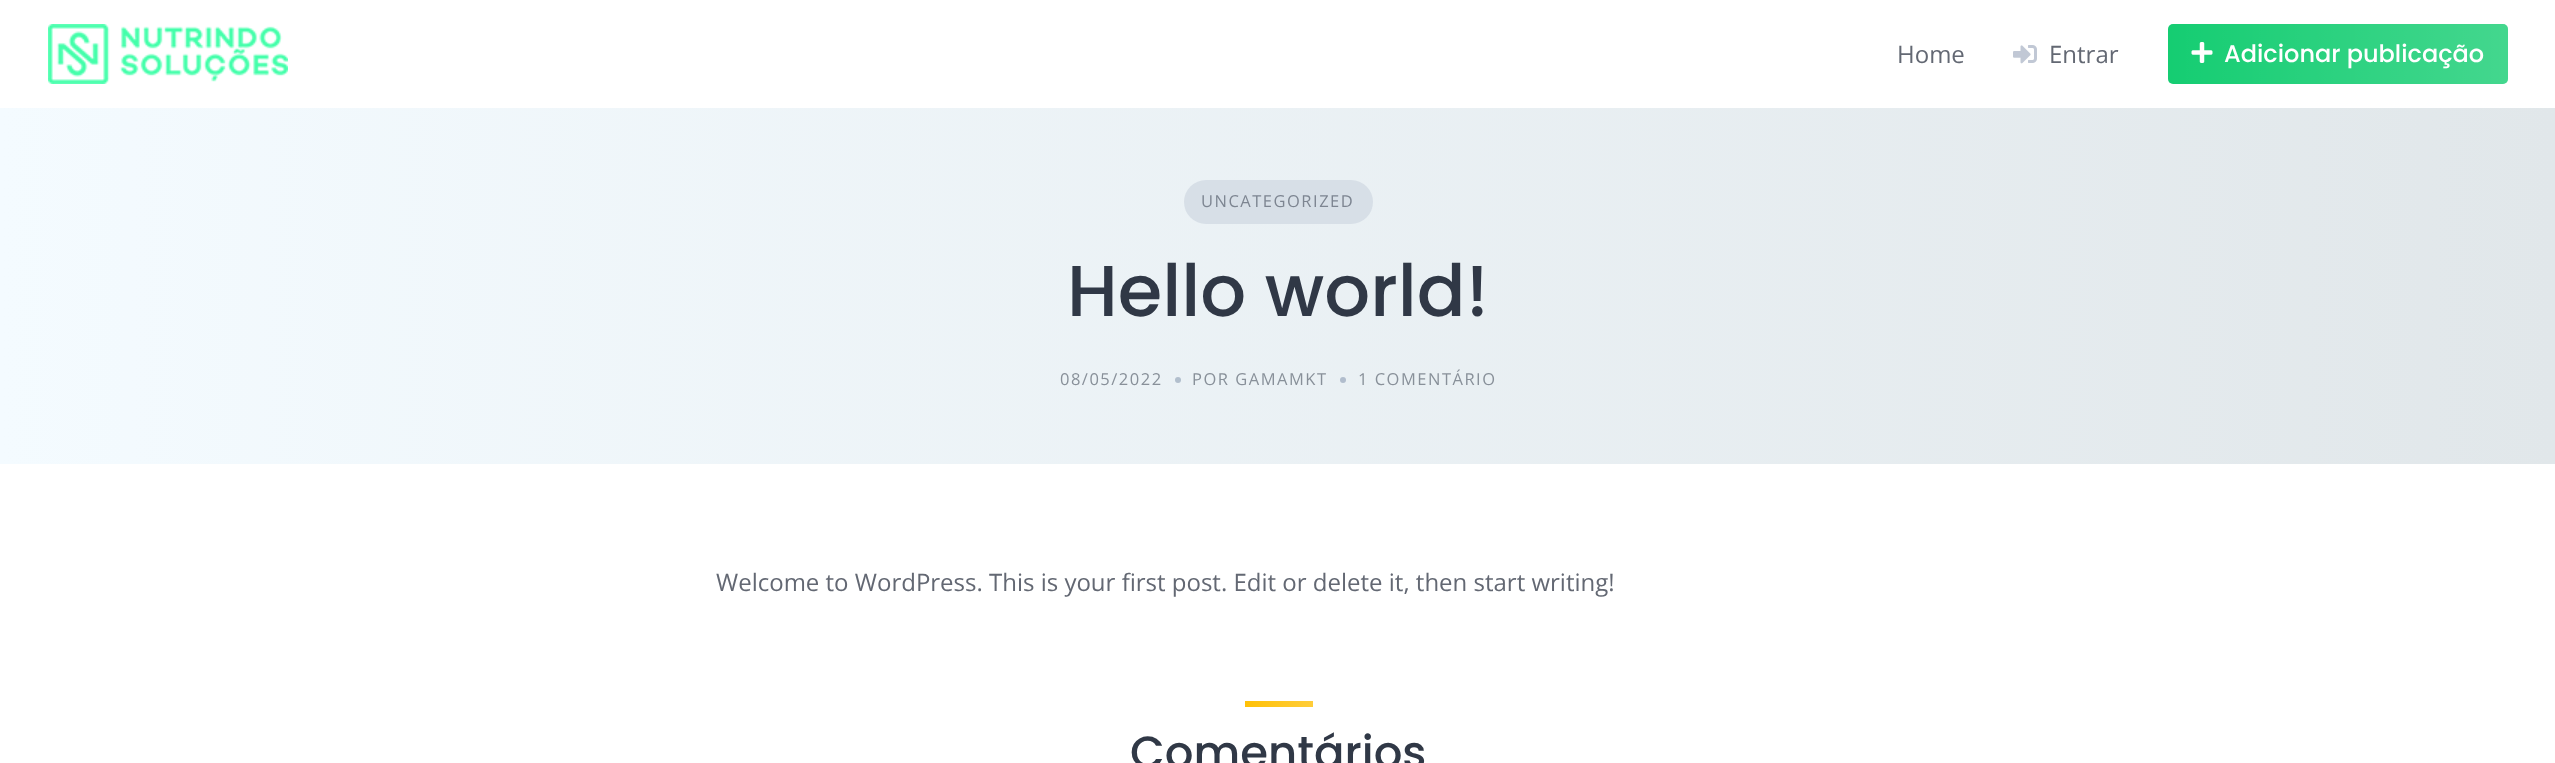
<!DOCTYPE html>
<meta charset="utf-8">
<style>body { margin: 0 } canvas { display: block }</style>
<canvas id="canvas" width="2555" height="763"></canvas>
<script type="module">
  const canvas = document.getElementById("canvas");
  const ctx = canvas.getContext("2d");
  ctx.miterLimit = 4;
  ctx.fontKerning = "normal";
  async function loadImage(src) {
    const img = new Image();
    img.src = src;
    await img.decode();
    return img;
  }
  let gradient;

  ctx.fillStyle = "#ffffff";
  ctx.fillRect(0, 0, 2555, 763);
  ctx.drawImage(await loadImage("img1.png"), 48, 24, 240, 60);
  ctx.font = "24px Open Sans";
  ctx.fillStyle = "#636873";
  ctx.fillText("Home", 1897, 63);
  ctx.drawImage(await loadImage("img2.png"), 2013, 45, 24, 19);
  ctx.fillText("Entrar", 2049, 63);
  ctx.fillStyle = "#15cd72";
  ctx.beginPath();
  ctx.roundRect(2168, 24, 340, 60, 5);
  ctx.fill();
  gradient = ctx.createLinearGradient(2168, 54, 2508, 54);
  gradient.addColorStop(0, "rgba(255, 255, 255, 0)");
  gradient.addColorStop(1, "rgba(255, 255, 255, 0.2)");
  ctx.fillStyle = gradient;
  ctx.beginPath();
  ctx.roundRect(2168, 24, 340, 60, 5);
  ctx.fill();
  ctx.drawImage(await loadImage("img3.png"), 2191, 42, 22, 21);
  ctx.font = "500 24px Poppins";
  ctx.fillStyle = "#ffffff";
  ctx.fillText("Adicionar publicação", 2224, 62);
  gradient = ctx.createLinearGradient(0, 286, 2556, 286);
  gradient.addColorStop(0, "#f4fbff");
  gradient.addColorStop(1, "#e1e7ea");
  ctx.fillStyle = gradient;
  ctx.fillRect(0, 108, 2555, 356);
  ctx.fillStyle = "#d7dfe7";
  ctx.beginPath();
  ctx.roundRect(1184, 180, 189, 44, 22);
  ctx.fill();
  ctx.letterSpacing = "1.5px";
  ctx.font = "16.5px Open Sans";
  ctx.fillStyle = "#7d8591";
  ctx.fillText("UNCATEGORIZED", 1201, 207);
  ctx.letterSpacing = "0px";
  ctx.font = "500 72px Poppins";
  ctx.fillStyle = "#303846";
  ctx.fillText("Hello world!", 1067, 316);
  ctx.letterSpacing = "1.5px";
  ctx.font = "16.5px Open Sans";
  ctx.fillStyle = "#889099";
  ctx.fillText("08/05/2022", 1060, 385);
  ctx.fillStyle = "#b2bfcd";
  ctx.beginPath();
  ctx.arc(1178, 380, 3, 0, Math.PI * 2);
  ctx.fill();
  ctx.fillStyle = "#889099";
  ctx.fillText("POR GAMAMKT", 1192, 385);
  ctx.fillStyle = "#b1bdcd";
  ctx.beginPath();
  ctx.arc(1343, 380, 3, 0, Math.PI * 2);
  ctx.fill();
  ctx.fillStyle = "#889099";
  ctx.fillText("1 COMENTÁRIO", 1358, 385);
  ctx.letterSpacing = "0px";
  ctx.font = "24px Open Sans";
  ctx.fillStyle = "#636873";
  ctx.fillText("Welcome to WordPress. This is your first post. Edit or delete it, then start writing!", 716, 591);
  gradient = ctx.createLinearGradient(1245, 704, 1313, 704);
  gradient.addColorStop(0, "#ffc107");
  gradient.addColorStop(1, "#ffcd39");
  ctx.fillStyle = gradient;
  ctx.fillRect(1245, 701, 68, 6);
  ctx.font = "500 45px Poppins";
  ctx.fillStyle = "#303846";
  ctx.fillText("Comentários", 1130, 768);
</script>
